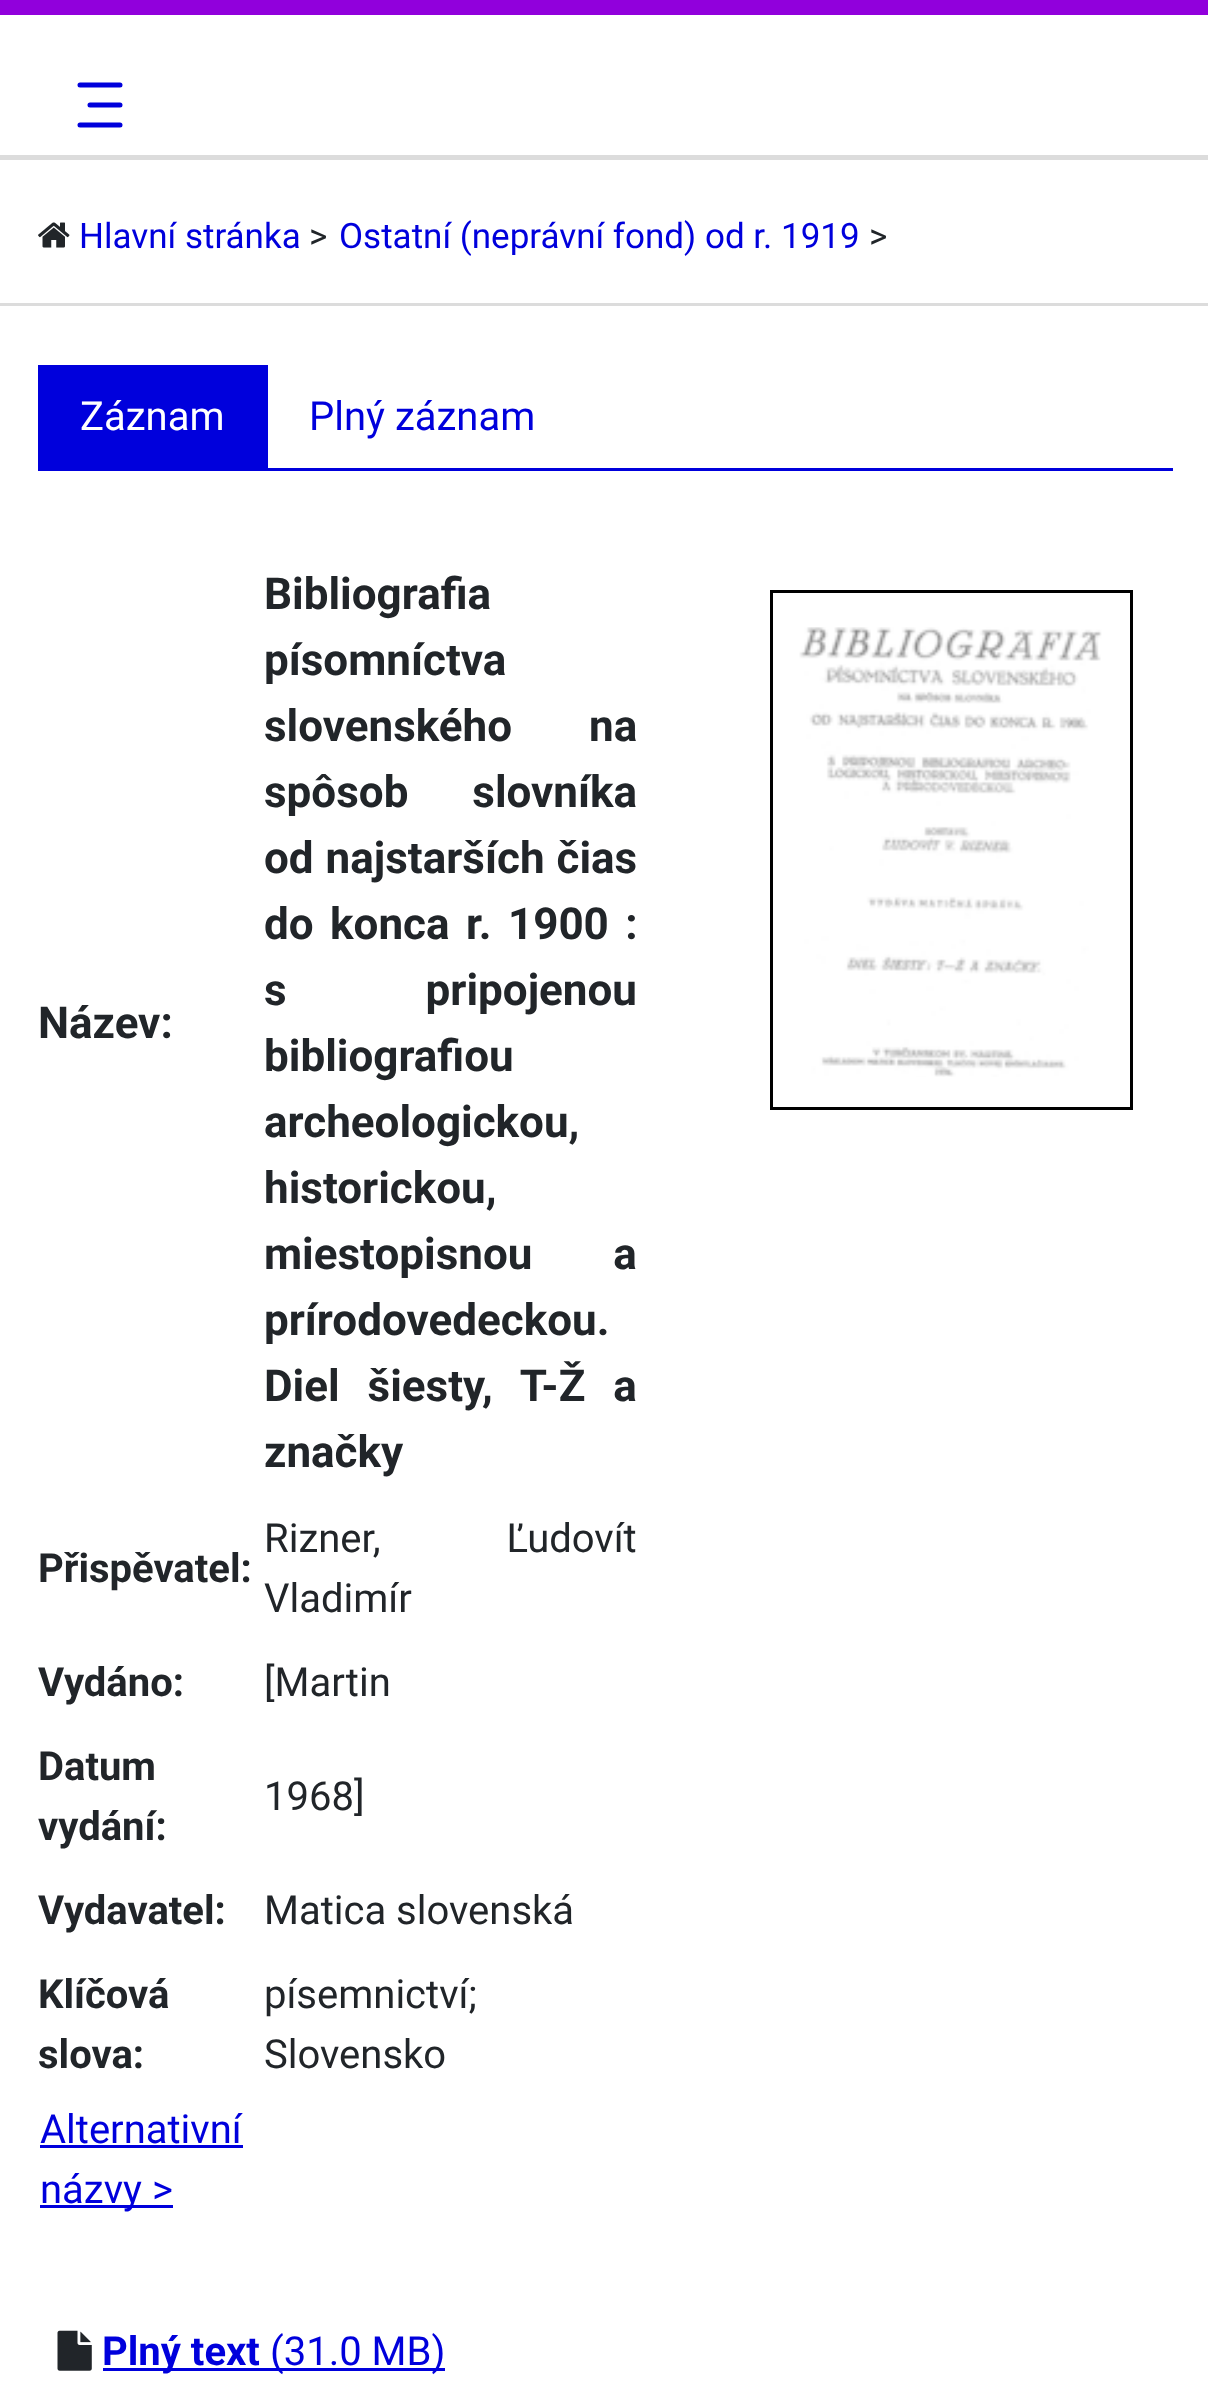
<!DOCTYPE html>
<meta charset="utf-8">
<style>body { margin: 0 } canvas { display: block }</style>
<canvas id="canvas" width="1208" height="2397"></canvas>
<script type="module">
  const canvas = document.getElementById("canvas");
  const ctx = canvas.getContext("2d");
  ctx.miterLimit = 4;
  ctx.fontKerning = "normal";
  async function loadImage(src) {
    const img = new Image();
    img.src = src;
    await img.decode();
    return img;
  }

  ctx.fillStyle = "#ffffff";
  ctx.fillRect(0, 0, 1208, 2397);
  ctx.fillStyle = "#9100dc";
  ctx.fillRect(0, 0, 1208, 15);
  ctx.beginPath();
  ctx.moveTo(80, 85);
  ctx.lineTo(120, 85);
  ctx.moveTo(90, 105);
  ctx.lineTo(120, 105);
  ctx.moveTo(80, 125);
  ctx.lineTo(120, 125);
  ctx.strokeStyle = "#0000dc";
  ctx.lineWidth = 5;
  ctx.lineCap = "round";
  ctx.stroke();
  ctx.fillStyle = "#dcdcdc";
  ctx.fillRect(0, 155, 1208, 5);
  ctx.drawImage(await loadImage("img1.png"), 38, 222, 32, 26);
  ctx.font = "35px Roboto";
  ctx.fillStyle = "#0000dc";
  ctx.fillText("Hlavní stránka", 79, 248);
  ctx.fillStyle = "#212529";
  ctx.fillText(">", 309, 248);
  ctx.fillStyle = "#0000dc";
  ctx.fillText("Ostatní (neprávní fond) od r. 1919", 339, 248);
  ctx.fillStyle = "#212529";
  ctx.fillText(">", 869, 248);
  ctx.fillStyle = "#dcdcdc";
  ctx.fillRect(0, 303, 1208, 3);
  ctx.fillStyle = "#0000dc";
  ctx.fillRect(38, 468, 1135, 3);
  ctx.fillRect(38, 365, 230, 103);
  ctx.font = "40px Roboto";
  ctx.fillStyle = "#ffffff";
  ctx.fillText("Záznam", 80, 430);
  ctx.fillStyle = "#0000dc";
  ctx.fillText("Plný záznam", 309, 430);
  ctx.font = "bold 44px Roboto";
  ctx.fillStyle = "#212529";
  ctx.fillText("Název:", 38, 1038);
  ctx.fillText("Bibliografia", 264, 609);
  ctx.fillText("písomníctva", 264, 675);
  ctx.wordSpacing = "66px";
  ctx.fillText("slovenského na", 264, 741);
  ctx.wordSpacing = "53px";
  ctx.fillText("spôsob slovníka", 264, 807);
  ctx.wordSpacing = "1px";
  ctx.fillText("od najstarších čias", 264, 873);
  ctx.wordSpacing = "5.5px";
  ctx.fillText("do konca r. 1900 :", 264, 939);
  ctx.wordSpacing = "128px";
  ctx.fillText("s pripojenou", 264, 1005);
  ctx.wordSpacing = "0px";
  ctx.fillText("bibliografiou", 264, 1071);
  ctx.fillText("archeologickou,", 264, 1137);
  ctx.fillText("historickou,", 264, 1203);
  ctx.wordSpacing = "70px";
  ctx.fillText("miestopisnou a", 264, 1269);
  ctx.wordSpacing = "0px";
  ctx.fillText("prírodovedeckou.", 264, 1335);
  ctx.wordSpacing = "17px";
  ctx.fillText("Diel šiesty, T-Ž a", 264, 1401);
  ctx.wordSpacing = "0px";
  ctx.fillText("značky", 264, 1467);
  ctx.font = "bold 40px Roboto";
  ctx.fillText("Přispěvatel:", 38, 1582);
  ctx.wordSpacing = "116px";
  ctx.font = "40px Roboto";
  ctx.fillText("Rizner, Ľudovít", 264, 1552);
  ctx.wordSpacing = "0px";
  ctx.fillText("Vladimír", 264, 1612);
  ctx.font = "bold 40px Roboto";
  ctx.fillText("Vydáno:", 38, 1696);
  ctx.font = "40px Roboto";
  ctx.fillText("[Martin", 264, 1696);
  ctx.font = "bold 40px Roboto";
  ctx.fillText("Datum", 38, 1780);
  ctx.fillText("vydání:", 38, 1840);
  ctx.font = "40px Roboto";
  ctx.fillText("1968]", 264, 1810);
  ctx.font = "bold 40px Roboto";
  ctx.fillText("Vydavatel:", 38, 1924);
  ctx.font = "40px Roboto";
  ctx.fillText("Matica slovenská", 264, 1924);
  ctx.font = "bold 40px Roboto";
  ctx.fillText("Klíčová", 38, 2008);
  ctx.fillText("slova:", 38, 2068);
  ctx.font = "40px Roboto";
  ctx.fillText("písemnictví;", 264, 2008);
  ctx.fillText("Slovensko", 264, 2068);
  ctx.fillStyle = "#0000dc";
  ctx.fillText("Alternativní", 40, 2143);
  ctx.fillRect(40, 2145, 203, 3);
  ctx.fillRect(40, 2205, 133, 3);
  ctx.fillText("názvy >", 40, 2203);
  ctx.drawImage(await loadImage("img2.png"), 57, 2330, 35, 41);
  ctx.fillRect(103, 2368, 342, 3);
  ctx.font = "bold 40px Roboto";
  ctx.fillText("Plný text", 102, 2365);
  ctx.font = "40px Roboto";
  ctx.fillText("(31.0 MB)", 270, 2365);
  ctx.strokeStyle = "#000000";
  ctx.lineWidth = 3;
  ctx.strokeRect(771.5, 591.5, 360, 517);
  ctx.drawImage(await loadImage("img3.png"), 799, 627, 303, 450);
</script>
